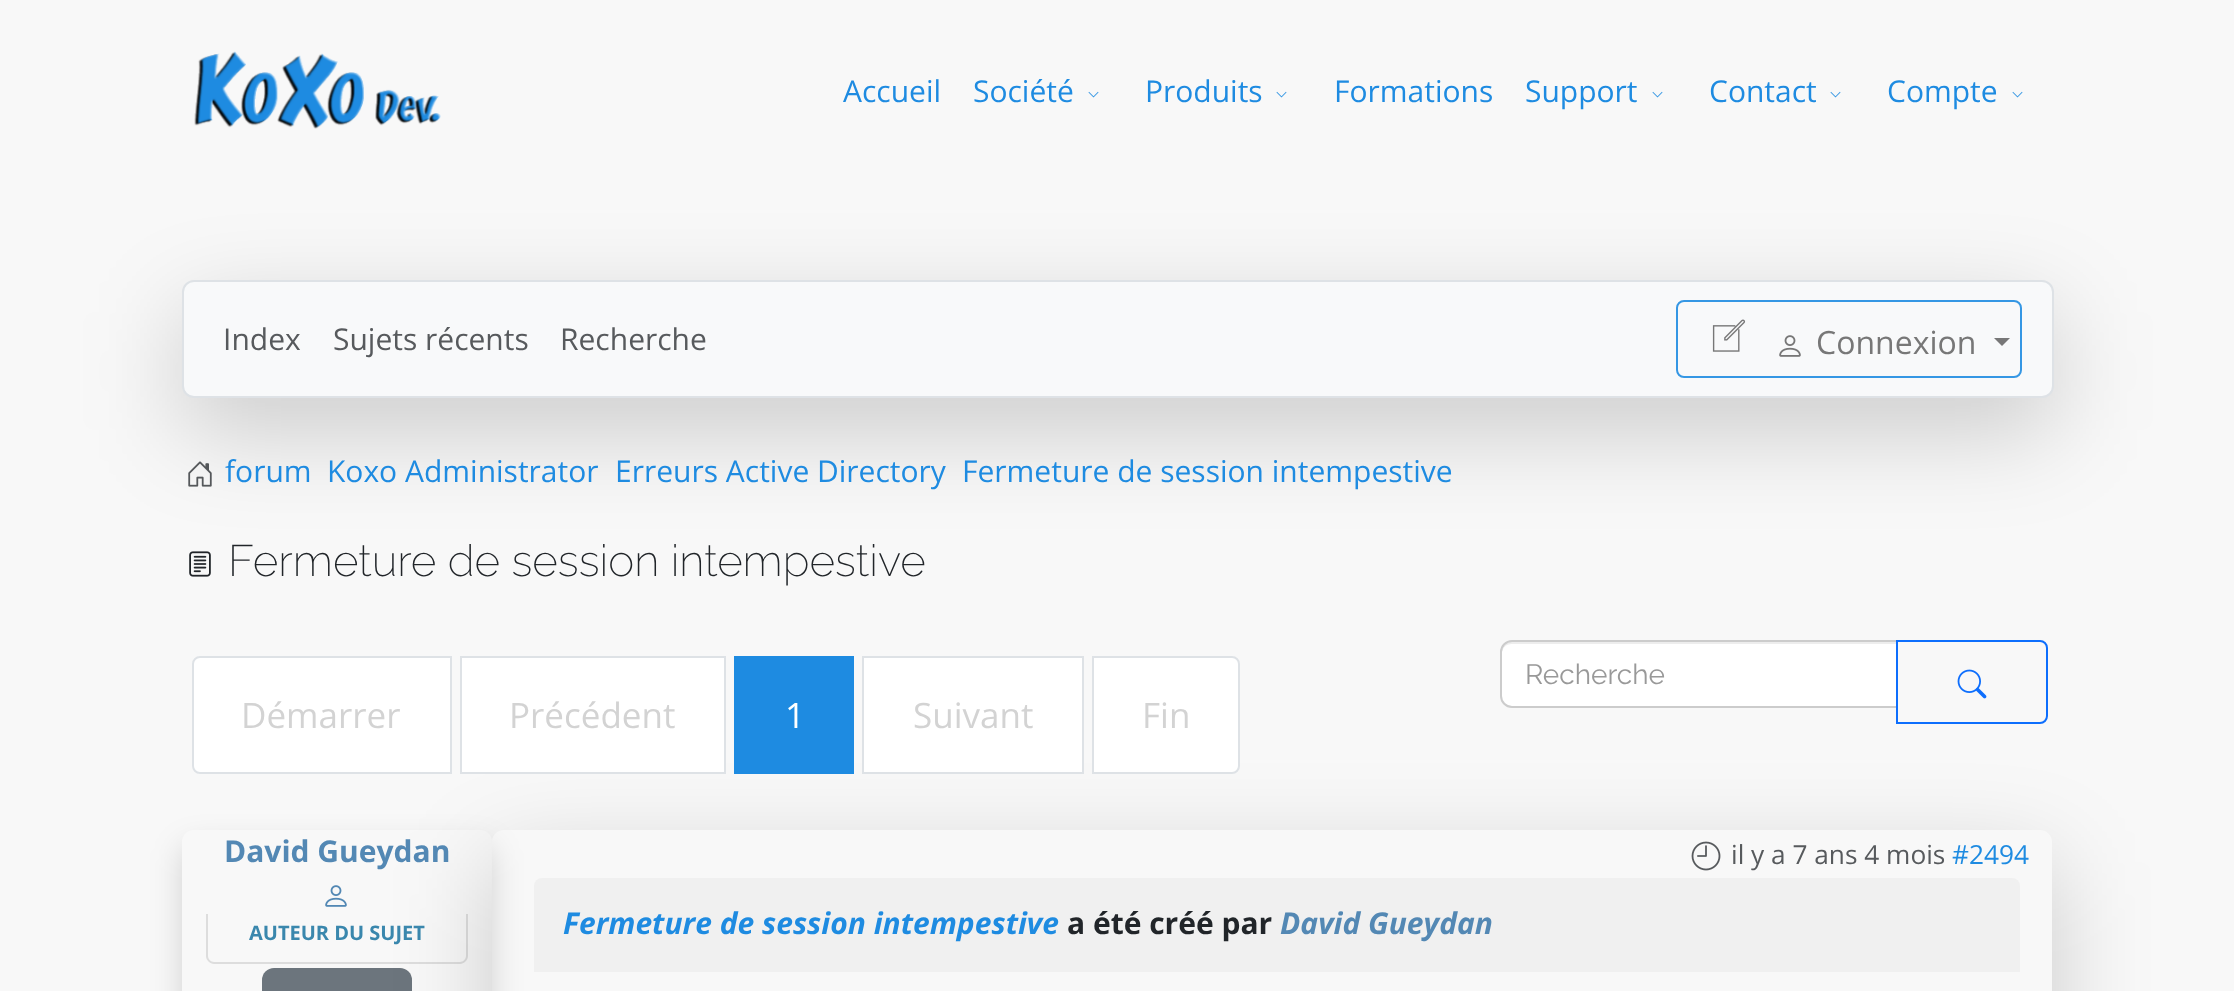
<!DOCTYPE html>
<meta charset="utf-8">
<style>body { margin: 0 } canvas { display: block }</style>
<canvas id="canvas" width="2234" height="991"></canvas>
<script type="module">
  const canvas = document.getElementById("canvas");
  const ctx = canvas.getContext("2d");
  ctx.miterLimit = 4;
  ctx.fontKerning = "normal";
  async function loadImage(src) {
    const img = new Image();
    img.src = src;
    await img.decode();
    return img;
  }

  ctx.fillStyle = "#f8f8f8";
  ctx.fillRect(0, 0, 2234, 991);
  ctx.drawImage(await loadImage("img1.png"), 194, 51, 247, 78);
  ctx.font = "30px Open Sans";
  ctx.fillStyle = "#1e8be1";
  ctx.fillText("Accueil", 843, 102);
  ctx.fillText("Société", 973, 102);
  ctx.drawImage(await loadImage("img2.png"), 1088, 91, 11, 7);
  ctx.fillText("Produits", 1145, 102);
  ctx.drawImage(await loadImage("img2.png"), 1276, 91, 11, 7);
  ctx.fillText("Formations", 1334, 102);
  ctx.fillText("Support", 1525, 102);
  ctx.drawImage(await loadImage("img2.png"), 1652, 91, 11, 7);
  ctx.fillText("Contact", 1709, 102);
  ctx.drawImage(await loadImage("img2.png"), 1830, 91, 11, 7);
  ctx.fillText("Compte", 1887, 102);
  ctx.drawImage(await loadImage("img2.png"), 2012, 91, 11, 7);
  ctx.drawImage(await loadImage("img5.png"), 188, 461, 24, 26);
  ctx.drawImage(await loadImage("img6.png"), 189, 551, 22, 26);
  ctx.fillStyle = "rgba(0, 0, 0, 0.18)";
  ctx.filter = "blur(48px)";
  ctx.beginPath();
  ctx.roundRect(182, 312, 1872, 118, 12);
  ctx.fill();
  ctx.filter = "none";
  ctx.fillStyle = "#f8f9fa";
  ctx.beginPath();
  ctx.roundRect(183, 281, 1870, 116, 11);
  ctx.fill();
  ctx.strokeStyle = "#dee2e6";
  ctx.lineWidth = 2;
  ctx.stroke();
  ctx.fillStyle = "#575a5d";
  ctx.fillText("Index", 223, 350);
  ctx.fillText("Sujets récents", 333, 350);
  ctx.fillText("Recherche", 560, 350);
  ctx.beginPath();
  ctx.roundRect(1677, 301, 344, 76, 7);
  ctx.strokeStyle = "#3597e4";
  ctx.stroke();
  ctx.drawImage(await loadImage("img3.png"), 1712, 319, 34, 33);
  ctx.drawImage(await loadImage("img4.png"), 1779, 335, 22, 22);
  ctx.font = "32px Open Sans";
  ctx.fillStyle = "#777777";
  ctx.fillText("Connexion", 1816, 354);
  ctx.beginPath();
  ctx.moveTo(1994, 338);
  ctx.lineTo(2010, 338);
  ctx.lineTo(2002, 346);
  ctx.closePath();
  ctx.fill();
  ctx.font = "30px Open Sans";
  ctx.fillStyle = "#1e8be1";
  ctx.fillText("forum", 225, 482);
  ctx.fillText("Koxo Administrator", 327, 482);
  ctx.fillText("Erreurs Active Directory", 615, 482);
  ctx.fillText("Fermeture de session intempestive", 962, 482);
  ctx.font = "200 44px Raleway";
  ctx.fillStyle = "#212529";
  ctx.fillText("Fermeture de session intempestive", 228, 576);
  ctx.fillStyle = "#ffffff";
  ctx.beginPath();
  ctx.roundRect(1502, 642, 394, 64, [10, 0, 0, 10]);
  ctx.fill();
  ctx.fillStyle = "rgba(0, 0, 0, 0.07)";
  ctx.beginPath();
  ctx.moveTo(1512, 644);
  ctx.lineTo(1896, 644);
  ctx.lineTo(1896, 642);
  ctx.lineTo(1510, 642);
  ctx.bezierCurveTo(1504, 643, 1502, 649, 1502, 654);
  ctx.bezierCurveTo(1502, 648, 1506, 644, 1512, 644);
  ctx.closePath();
  ctx.fill();
  ctx.beginPath();
  ctx.roundRect(1501, 641, 396, 66, [11, 0, 0, 11]);
  ctx.strokeStyle = "#cccccc";
  ctx.stroke();
  ctx.font = "28px Raleway";
  ctx.fillStyle = "#999999";
  ctx.fillText("Recherche", 1525, 684);
  ctx.save();
  ctx.beginPath();
  ctx.moveTo(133, 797);
  ctx.lineTo(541, 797);
  ctx.lineTo(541, 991);
  ctx.lineTo(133, 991);
  ctx.closePath();
  ctx.moveTo(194, 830);
  ctx.lineTo(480, 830);
  ctx.bezierCurveTo(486.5, 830, 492, 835.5, 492, 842);
  ctx.lineTo(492, 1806);
  ctx.bezierCurveTo(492, 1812.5, 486.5, 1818, 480, 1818);
  ctx.lineTo(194, 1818);
  ctx.bezierCurveTo(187.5, 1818, 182, 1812.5, 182, 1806);
  ctx.lineTo(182, 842);
  ctx.bezierCurveTo(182, 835.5, 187.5, 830, 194, 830);
  ctx.closePath();
  ctx.clip("evenodd");
  ctx.fillStyle = "rgba(0, 0, 0, 0.15)";
  ctx.filter = "blur(16px)";
  ctx.beginPath();
  ctx.roundRect(182, 846, 310, 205, 12);
  ctx.fill();
  ctx.filter = "none";
  ctx.restore();
  ctx.fillStyle = "#dddddd";
  ctx.beginPath();
  ctx.moveTo(206, 914);
  ctx.lineTo(468, 914);
  ctx.lineTo(468, 956);
  ctx.bezierCurveTo(468, 960, 464, 964, 460, 964);
  ctx.lineTo(214, 964);
  ctx.bezierCurveTo(210, 964, 206, 960, 206, 956);
  ctx.closePath();
  ctx.moveTo(208, 914);
  ctx.lineTo(466, 914);
  ctx.lineTo(466, 956);
  ctx.bezierCurveTo(466, 959, 463, 962, 460, 962);
  ctx.lineTo(214, 962);
  ctx.bezierCurveTo(211, 962, 208, 959, 208, 956);
  ctx.closePath();
  ctx.fill("evenodd");
  ctx.fillStyle = "#6c757d";
  ctx.beginPath();
  ctx.roundRect(262, 968, 150, 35, 12);
  ctx.fill();
  ctx.save();
  ctx.beginPath();
  ctx.moveTo(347, 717);
  ctx.lineTo(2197, 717);
  ctx.lineTo(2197, 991);
  ctx.lineTo(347, 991);
  ctx.closePath();
  ctx.moveTo(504, 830);
  ctx.lineTo(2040, 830);
  ctx.bezierCurveTo(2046.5, 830, 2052, 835.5, 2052, 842);
  ctx.lineTo(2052, 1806);
  ctx.bezierCurveTo(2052, 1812.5, 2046.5, 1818, 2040, 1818);
  ctx.lineTo(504, 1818);
  ctx.bezierCurveTo(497.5, 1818, 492, 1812.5, 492, 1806);
  ctx.lineTo(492, 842);
  ctx.bezierCurveTo(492, 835.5, 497.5, 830, 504, 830);
  ctx.closePath();
  ctx.clip("evenodd");
  ctx.fillStyle = "rgba(0, 0, 0, 0.18)";
  ctx.filter = "blur(48px)";
  ctx.beginPath();
  ctx.roundRect(492, 862, 1560, 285, 12);
  ctx.fill();
  ctx.filter = "none";
  ctx.restore();
  ctx.beginPath();
  ctx.roundRect(1897, 641, 150, 82, [0, 7, 7, 0]);
  ctx.strokeStyle = "#0d6efd";
  ctx.stroke();
  ctx.drawImage(await loadImage("img7.png"), 1957, 669, 30, 30);
  ctx.fillStyle = "#ffffff";
  ctx.beginPath();
  ctx.roundRect(193, 657, 258, 116, [7, 0, 0, 7]);
  ctx.fill();
  ctx.strokeStyle = "#dee2e6";
  ctx.stroke();
  ctx.font = "35px Open Sans";
  ctx.fillStyle = "#d3d3d3";
  ctx.fillText("Démarrer", 241, 728);
  ctx.fillStyle = "#ffffff";
  ctx.beginPath();
  ctx.rect(461, 657, 264, 116);
  ctx.fill();
  ctx.stroke();
  ctx.fillStyle = "#d3d3d3";
  ctx.fillText("Précédent", 509, 728);
  ctx.fillStyle = "#1e8be1";
  ctx.fillRect(734, 656, 120, 118);
  ctx.fillStyle = "#ffffff";
  ctx.fillText("1", 785, 728);
  ctx.beginPath();
  ctx.rect(863, 657, 220, 116);
  ctx.fill();
  ctx.stroke();
  ctx.fillStyle = "#d3d3d3";
  ctx.fillText("Suivant", 913, 728);
  ctx.fillStyle = "#ffffff";
  ctx.beginPath();
  ctx.roundRect(1093, 657, 146, 116, [0, 7, 7, 0]);
  ctx.fill();
  ctx.stroke();
  ctx.fillStyle = "#d3d3d3";
  ctx.fillText("Fin", 1142, 728);
  ctx.font = "bold 30px Open Sans";
  ctx.fillStyle = "#5388b4";
  ctx.fillText("David Gueydan", 224, 862);
  ctx.drawImage(await loadImage("img8.png"), 325, 885, 22, 22);
  ctx.font = "bold 20px Open Sans";
  ctx.fillStyle = "#3a87ad";
  ctx.fillText("AUTEUR DU SUJET", 249, 940);
  ctx.drawImage(await loadImage("img9.png"), 1691, 841, 30, 30);
  ctx.font = "26.25px Open Sans";
  ctx.fillStyle = "#575a5d";
  ctx.fillText("il y a 7 ans 4 mois", 1731, 864);
  ctx.fillStyle = "#1e8be1";
  ctx.fillText("#2494", 1952, 864);
  ctx.fillStyle = "#f0f0f0";
  ctx.beginPath();
  ctx.roundRect(534, 878, 1486, 94, [8, 8, 0, 0]);
  ctx.fill();
  ctx.font = "italic bold 30px Open Sans";
  ctx.fillStyle = "#1e8be1";
  ctx.fillText("Fermeture de session intempestive", 563, 934);
  ctx.font = "bold 30px Open Sans";
  ctx.fillStyle = "#212529";
  ctx.fillText("a été créé par", 1067, 934);
  ctx.font = "italic bold 30px Open Sans";
  ctx.fillStyle = "#5388b4";
  ctx.fillText("David Gueydan", 1280, 934);
</script>
